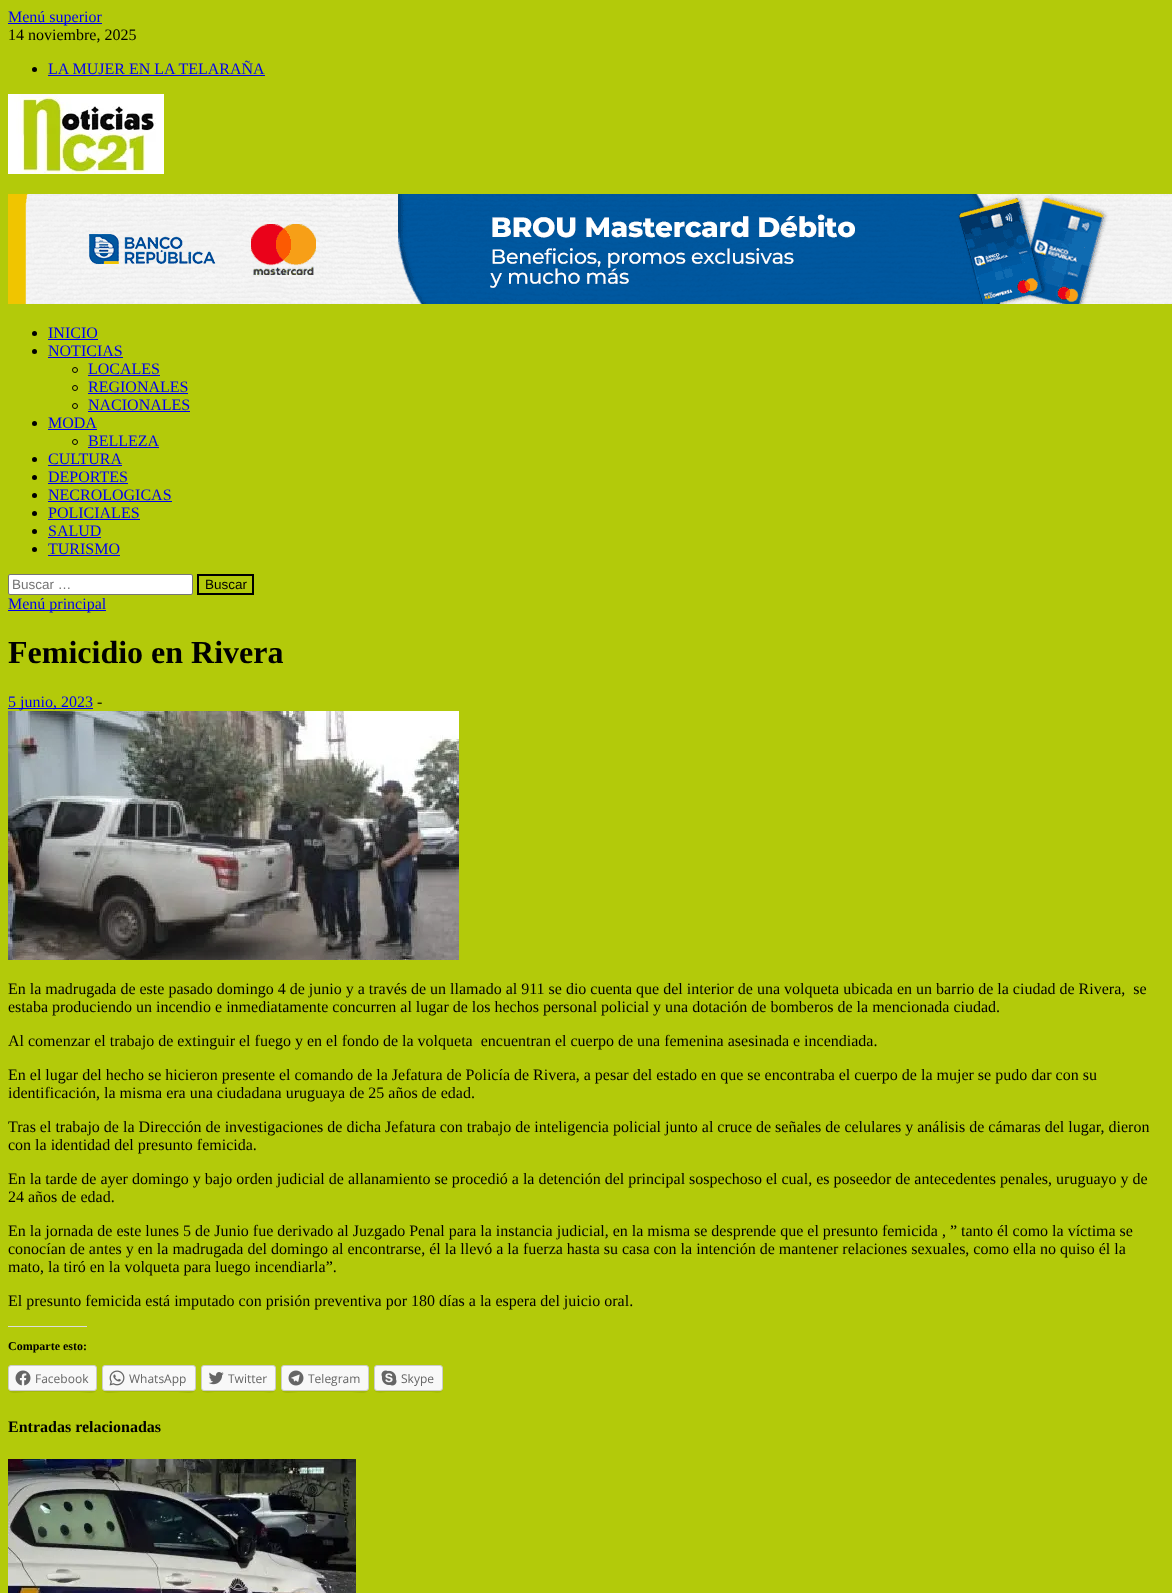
<!DOCTYPE html>
<meta charset="utf-8">
<style>body { margin: 0 } canvas { display: block }</style>
<canvas id="canvas" width="1172" height="1593"></canvas>
<script type="module">
  const canvas = document.getElementById("canvas");
  const ctx = canvas.getContext("2d");
  ctx.miterLimit = 4;
  ctx.fontKerning = "normal";
  async function loadImage(src) {
    const img = new Image();
    img.src = src;
    await img.decode();
    return img;
  }

  ctx.fillStyle = "#b3ca0a";
  ctx.fillRect(0, 0, 1172, 1593);
  ctx.fillStyle = "#0000ee";
  ctx.fillRect(8, 23, 94, 1);
  ctx.font = "16px Liberation Serif";
  ctx.fillText("Menú superior", 8, 22);
  ctx.fillStyle = "#000000";
  ctx.fillText("14 noviembre, 2025", 8, 40);
  ctx.beginPath();
  ctx.arc(34.5, 69.5, 2.5, 0, Math.PI * 2);
  ctx.fill();
  ctx.fillStyle = "#0000ee";
  ctx.fillText("LA MUJER EN LA TELARAÑA", 48, 74);
  ctx.fillRect(48, 75, 217, 1);
  ctx.drawImage(await loadImage("img1.png"), 8, 94, 156, 80);
  ctx.drawImage(await loadImage("img2.png"), 8, 194, 1164, 110);
  ctx.fillStyle = "#000000";
  ctx.beginPath();
  ctx.arc(34.5, 333.5, 2.5, 0, Math.PI * 2);
  ctx.fill();
  ctx.fillStyle = "#0000ee";
  ctx.fillText("INICIO", 48, 338);
  ctx.fillRect(48, 339, 50, 1);
  ctx.fillStyle = "#000000";
  ctx.beginPath();
  ctx.arc(34.5, 351.5, 2.5, 0, Math.PI * 2);
  ctx.fill();
  ctx.fillStyle = "#0000ee";
  ctx.fillText("NOTICIAS", 48, 356);
  ctx.fillRect(48, 357, 75, 1);
  ctx.beginPath();
  ctx.arc(75, 370, 2.5, 0, Math.PI * 2);
  ctx.strokeStyle = "#000000";
  ctx.stroke();
  ctx.fillText("LOCALES", 88, 374);
  ctx.fillRect(88, 375, 72, 1);
  ctx.beginPath();
  ctx.arc(75, 388, 2.5, 0, Math.PI * 2);
  ctx.stroke();
  ctx.fillText("REGIONALES", 88, 392);
  ctx.fillRect(88, 393, 100, 1);
  ctx.beginPath();
  ctx.arc(75, 406, 2.5, 0, Math.PI * 2);
  ctx.stroke();
  ctx.fillText("NACIONALES", 88, 410);
  ctx.fillRect(88, 411, 102, 1);
  ctx.fillStyle = "#000000";
  ctx.beginPath();
  ctx.arc(34.5, 423.5, 2.5, 0, Math.PI * 2);
  ctx.fill();
  ctx.fillStyle = "#0000ee";
  ctx.fillText("MODA", 48, 428);
  ctx.fillRect(48, 429, 49, 1);
  ctx.beginPath();
  ctx.arc(75, 442, 2.5, 0, Math.PI * 2);
  ctx.stroke();
  ctx.fillText("BELLEZA", 88, 446);
  ctx.fillRect(88, 447, 71, 1);
  ctx.fillStyle = "#000000";
  ctx.beginPath();
  ctx.arc(34.5, 459.5, 2.5, 0, Math.PI * 2);
  ctx.fill();
  ctx.fillStyle = "#0000ee";
  ctx.fillText("CULTURA", 48, 464);
  ctx.fillRect(48, 465, 74, 1);
  ctx.fillStyle = "#000000";
  ctx.beginPath();
  ctx.arc(34.5, 477.5, 2.5, 0, Math.PI * 2);
  ctx.fill();
  ctx.fillStyle = "#0000ee";
  ctx.fillText("DEPORTES", 48, 482);
  ctx.fillRect(48, 483, 80, 1);
  ctx.fillStyle = "#000000";
  ctx.beginPath();
  ctx.arc(34.5, 495.5, 2.5, 0, Math.PI * 2);
  ctx.fill();
  ctx.fillStyle = "#0000ee";
  ctx.fillText("NECROLOGICAS", 48, 500);
  ctx.fillRect(48, 501, 124, 1);
  ctx.fillStyle = "#000000";
  ctx.beginPath();
  ctx.arc(34.5, 513.5, 2.5, 0, Math.PI * 2);
  ctx.fill();
  ctx.fillStyle = "#0000ee";
  ctx.fillText("POLICIALES", 48, 518);
  ctx.fillRect(48, 519, 92, 1);
  ctx.fillStyle = "#000000";
  ctx.beginPath();
  ctx.arc(34.5, 531.5, 2.5, 0, Math.PI * 2);
  ctx.fill();
  ctx.fillStyle = "#0000ee";
  ctx.fillText("SALUD", 48, 536);
  ctx.fillRect(48, 537, 53, 1);
  ctx.fillStyle = "#000000";
  ctx.beginPath();
  ctx.arc(34.5, 549.5, 2.5, 0, Math.PI * 2);
  ctx.fill();
  ctx.fillStyle = "#0000ee";
  ctx.fillText("TURISMO", 48, 554);
  ctx.fillRect(48, 555, 72, 1);
  ctx.fillStyle = "#ffffff";
  ctx.beginPath();
  ctx.roundRect(8.5, 574.5, 184, 20, 1.5);
  ctx.fill();
  ctx.strokeStyle = "#767676";
  ctx.stroke();
  ctx.font = "13.5px Liberation Sans";
  ctx.fillStyle = "#757575";
  ctx.fillText("Buscar …", 12, 589);
  ctx.strokeStyle = "#000000";
  ctx.lineWidth = 2;
  ctx.strokeRect(198, 575, 55, 19);
  ctx.fillStyle = "#000000";
  ctx.fillText("Buscar", 205, 589);
  ctx.fillStyle = "#0000ee";
  ctx.fillRect(8, 610, 98, 1);
  ctx.font = "16px Liberation Serif";
  ctx.fillText("Menú principal", 8, 609);
  ctx.font = "bold 32px Liberation Serif";
  ctx.fillStyle = "#000000";
  ctx.fillText("Femicidio en Rivera", 8, 663);
  ctx.fillStyle = "#0000ee";
  ctx.fillRect(8, 708, 85, 1);
  ctx.font = "16px Liberation Serif";
  ctx.fillText("5 junio, 2023", 8, 707);
  ctx.fillStyle = "#000000";
  ctx.fillText("-", 97, 707);
  ctx.drawImage(await loadImage("img3.png"), 8, 711, 451, 249);
  ctx.fillText("En la madrugada de este pasado domingo 4 de junio y a través de un llamado al 911 se dio cuenta que del interior de una volqueta ubicada en un barrio de la ciudad de Rivera,  se", 8, 994);
  ctx.fillText("estaba produciendo un incendio e inmediatamente concurren al lugar de los hechos personal policial y una dotación de bomberos de la mencionada ciudad.", 8, 1012);
  ctx.fillText("Al comenzar el trabajo de extinguir el fuego y en el fondo de la volqueta  encuentran el cuerpo de una femenina asesinada e incendiada.", 8, 1046);
  ctx.fillText("En el lugar del hecho se hicieron presente el comando de la Jefatura de Policía de Rivera, a pesar del estado en que se encontraba el cuerpo de la mujer se pudo dar con su", 8, 1080);
  ctx.fillText("identificación, la misma era una ciudadana uruguaya de 25 años de edad.", 8, 1098);
  ctx.fillText("Tras el trabajo de la Dirección de investigaciones de dicha Jefatura con trabajo de inteligencia policial junto al cruce de señales de celulares y análisis de cámaras del lugar, dieron", 8, 1132);
  ctx.fillText("con la identidad del presunto femicida.", 8, 1150);
  ctx.fillText("En la tarde de ayer domingo y bajo orden judicial de allanamiento se procedió a la detención del principal sospechoso el cual, es poseedor de antecedentes penales, uruguayo y de", 8, 1184);
  ctx.fillText("24 años de edad.", 8, 1202);
  ctx.fillText("En la jornada de este lunes 5 de Junio fue derivado al Juzgado Penal para la instancia judicial, en la misma se desprende que el presunto femicida , ” tanto él como la víctima se", 8, 1236);
  ctx.fillText("conocían de antes y en la madrugada del domingo al encontrarse, él la llevó a la fuerza hasta su casa con la intención de mantener relaciones sexuales, como ella no quiso él la", 8, 1254);
  ctx.fillText("mato, la tiró en la volqueta para luego incendiarla”.", 8, 1272);
  ctx.fillText("El presunto femicida está imputado con prisión preventiva por 180 días a la espera del juicio oral.", 8, 1306);
  ctx.fillStyle = "#dcdcde";
  ctx.fillRect(8, 1326, 79, 1);
  ctx.font = "bold 12px Liberation Serif";
  ctx.fillStyle = "#000000";
  ctx.fillText("Comparte esto:", 8, 1350);
  ctx.fillStyle = "#a5ba09";
  ctx.beginPath();
  ctx.moveTo(8, 1388);
  ctx.bezierCurveTo(8, 1396, 21, 1392, 25, 1392);
  ctx.lineTo(80, 1392);
  ctx.bezierCurveTo(84, 1392, 97, 1396, 97, 1388);
  ctx.bezierCurveTo(97, 1390, 96, 1391, 94, 1391);
  ctx.lineTo(11, 1391);
  ctx.bezierCurveTo(9, 1391, 8, 1390, 8, 1388);
  ctx.closePath();
  ctx.fill();
  ctx.fillStyle = "#f8f8f8";
  ctx.beginPath();
  ctx.roundRect(8.5, 1365.5, 88, 25, 2.5);
  ctx.fill();
  ctx.strokeStyle = "#cccccc";
  ctx.lineWidth = 1;
  ctx.stroke();
  ctx.drawImage(await loadImage("img4.png"), 15, 1370, 16, 16);
  ctx.font = "12px Open Sans";
  ctx.fillStyle = "#656565";
  ctx.fillText("Facebook", 35, 1383);
  ctx.fillStyle = "#a5ba09";
  ctx.beginPath();
  ctx.moveTo(102, 1388);
  ctx.bezierCurveTo(102, 1396, 116, 1392, 120, 1392);
  ctx.lineTo(178, 1392);
  ctx.bezierCurveTo(182, 1392, 196, 1396, 196, 1388);
  ctx.bezierCurveTo(196, 1390, 195, 1391, 193, 1391);
  ctx.lineTo(105, 1391);
  ctx.bezierCurveTo(103, 1391, 102, 1390, 102, 1388);
  ctx.closePath();
  ctx.fill();
  ctx.fillStyle = "#f8f8f8";
  ctx.beginPath();
  ctx.roundRect(102.5, 1365.5, 93, 25, 2.5);
  ctx.fill();
  ctx.stroke();
  ctx.drawImage(await loadImage("img5.png"), 109, 1370, 16, 16);
  ctx.fillStyle = "#656565";
  ctx.fillText("WhatsApp", 129, 1383);
  ctx.fillStyle = "#a5ba09";
  ctx.beginPath();
  ctx.moveTo(201, 1388);
  ctx.bezierCurveTo(201, 1395, 211, 1392, 216, 1392);
  ctx.lineTo(262, 1392);
  ctx.bezierCurveTo(266, 1392, 276, 1395, 276, 1388);
  ctx.bezierCurveTo(276, 1390, 275, 1391, 273, 1391);
  ctx.lineTo(204, 1391);
  ctx.bezierCurveTo(202, 1391, 201, 1390, 201, 1388);
  ctx.closePath();
  ctx.fill();
  ctx.fillStyle = "#f8f8f8";
  ctx.beginPath();
  ctx.roundRect(201.5, 1365.5, 74, 25, 2.5);
  ctx.fill();
  ctx.stroke();
  ctx.drawImage(await loadImage("img6.png"), 208, 1372, 16, 13);
  ctx.fillStyle = "#656565";
  ctx.fillText("Twitter", 228, 1383);
  ctx.fillStyle = "#a5ba09";
  ctx.beginPath();
  ctx.moveTo(281, 1388);
  ctx.bezierCurveTo(281, 1396, 294, 1392, 298, 1392);
  ctx.lineTo(352, 1392);
  ctx.bezierCurveTo(356, 1392, 369, 1396, 369, 1388);
  ctx.bezierCurveTo(369, 1390, 368, 1391, 366, 1391);
  ctx.lineTo(284, 1391);
  ctx.bezierCurveTo(282, 1391, 281, 1390, 281, 1388);
  ctx.closePath();
  ctx.fill();
  ctx.fillStyle = "#f8f8f8";
  ctx.beginPath();
  ctx.roundRect(281.5, 1365.5, 87, 25, 2.5);
  ctx.fill();
  ctx.stroke();
  ctx.drawImage(await loadImage("img7.png"), 288, 1370, 16, 16);
  ctx.fillStyle = "#656565";
  ctx.fillText("Telegram", 308, 1383);
  ctx.fillStyle = "#a5ba09";
  ctx.beginPath();
  ctx.moveTo(374, 1388);
  ctx.bezierCurveTo(374, 1395, 383, 1392, 388, 1392);
  ctx.lineTo(430, 1392);
  ctx.bezierCurveTo(434, 1392, 443, 1395, 443, 1388);
  ctx.bezierCurveTo(443, 1390, 442, 1391, 440, 1391);
  ctx.lineTo(377, 1391);
  ctx.bezierCurveTo(375, 1391, 374, 1390, 374, 1388);
  ctx.closePath();
  ctx.fill();
  ctx.fillStyle = "#f8f8f8";
  ctx.beginPath();
  ctx.roundRect(374.5, 1365.5, 68, 25, 2.5);
  ctx.fill();
  ctx.stroke();
  ctx.drawImage(await loadImage("img8.png"), 381, 1370, 16, 16);
  ctx.fillStyle = "#656565";
  ctx.fillText("Skype", 401, 1383);
  ctx.font = "bold 16px Liberation Serif";
  ctx.fillStyle = "#000000";
  ctx.fillText("Entradas relacionadas", 8, 1432);
  ctx.drawImage(await loadImage("img9.png"), 8, 1459, 348, 134);
</script>
